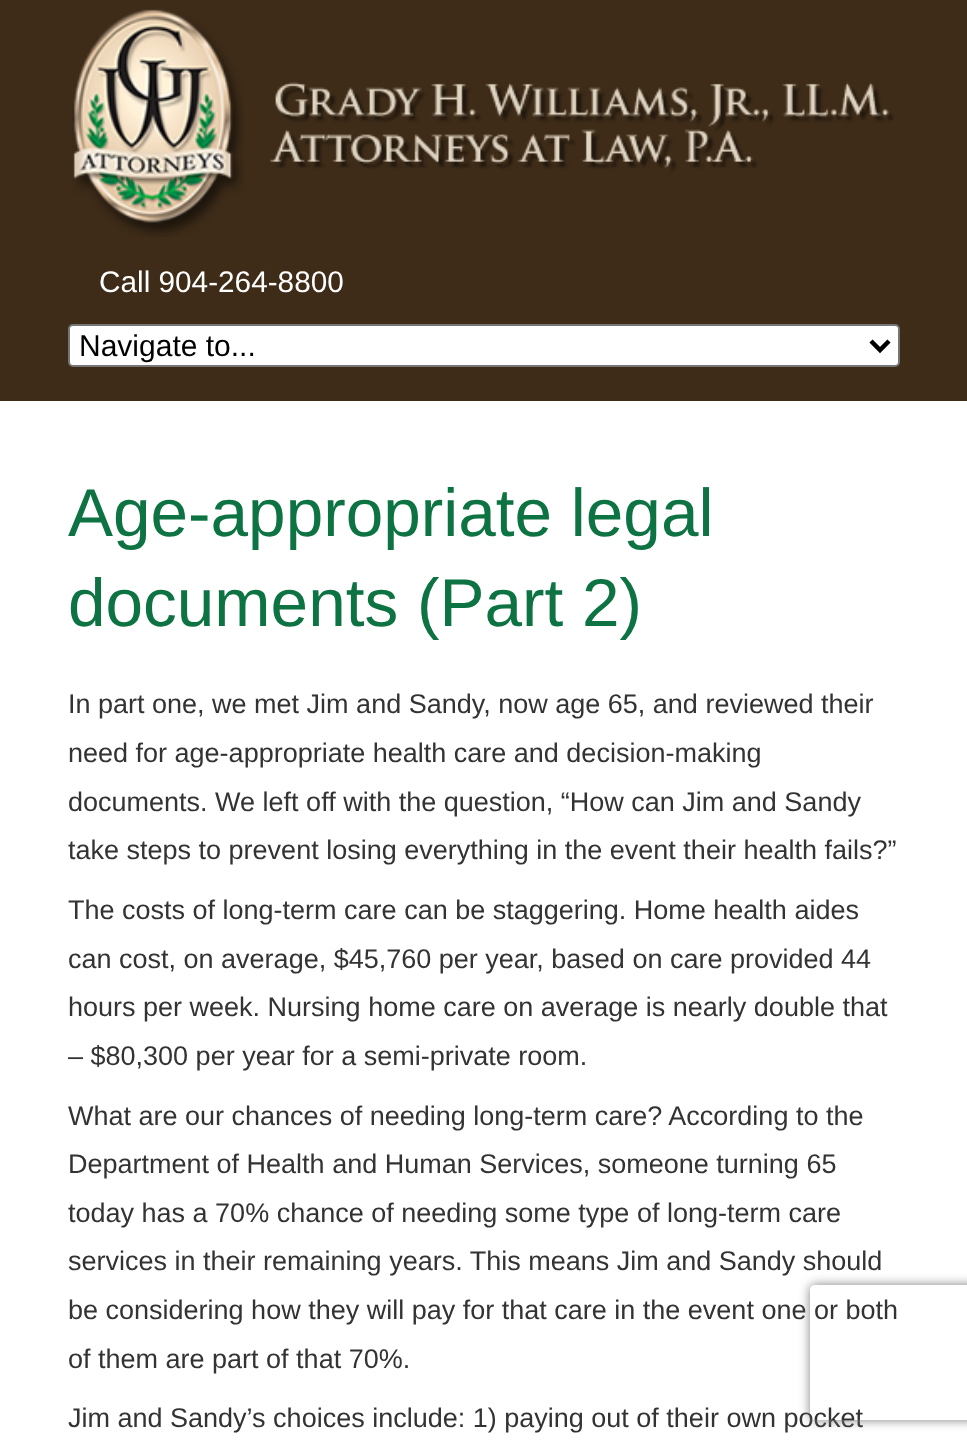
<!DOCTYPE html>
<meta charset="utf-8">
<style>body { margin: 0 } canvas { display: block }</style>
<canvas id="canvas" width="967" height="1450"></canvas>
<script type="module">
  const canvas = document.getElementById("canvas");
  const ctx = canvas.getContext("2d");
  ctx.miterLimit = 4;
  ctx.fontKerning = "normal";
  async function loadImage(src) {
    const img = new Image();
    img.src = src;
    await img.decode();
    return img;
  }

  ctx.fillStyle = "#3e2c19";
  ctx.fillRect(0, 0, 967, 1450);
  ctx.drawImage(await loadImage("img1.png"), 72, 9, 822, 228);
  ctx.font = "29.75px Liberation Sans";
  ctx.fillStyle = "#ffffff";
  ctx.fillText("Call 904-264-8800", 99, 292);
  ctx.beginPath();
  ctx.roundRect(69, 325, 830, 41, 4);
  ctx.fill();
  ctx.strokeStyle = "#767676";
  ctx.lineWidth = 2;
  ctx.stroke();
  ctx.beginPath();
  ctx.moveTo(871, 341);
  ctx.lineTo(880, 350);
  ctx.lineTo(889, 341);
  ctx.strokeStyle = "#000000";
  ctx.lineWidth = 4.5;
  ctx.stroke();
  ctx.font = "30px Liberation Sans";
  ctx.fillStyle = "#000000";
  ctx.fillText("Navigate to...", 79, 356);
  ctx.fillStyle = "#ffffff";
  ctx.fillRect(0, 401, 967, 1049);
  ctx.font = "67.5px Liberation Sans";
  ctx.fillStyle = "#0d7342";
  ctx.fillText("Age-appropriate legal", 68, 536);
  ctx.fillText("documents (Part 2)", 68, 626);
  ctx.font = "27px Liberation Sans";
  ctx.fillStyle = "#333333";
  ctx.fillText("In part one, we met Jim and Sandy, now age 65, and reviewed their", 68, 713);
  ctx.fillText("need for age-appropriate health care and decision-making", 68, 762);
  ctx.fillText("documents. We left off with the question, “How can Jim and Sandy", 68, 811);
  ctx.fillText("take steps to prevent losing everything in the event their health fails?”", 68, 859);
  ctx.fillText("The costs of long-term care can be staggering. Home health aides", 68, 919);
  ctx.fillText("can cost, on average, $45,760 per year, based on care provided 44", 68, 968);
  ctx.fillText("hours per week. Nursing home care on average is nearly double that", 68, 1016);
  ctx.fillText("– $80,300 per year for a semi-private room.", 68, 1065);
  ctx.fillText("What are our chances of needing long-term care? According to the", 68, 1125);
  ctx.fillText("Department of Health and Human Services, someone turning 65", 68, 1173);
  ctx.fillText("today has a 70% chance of needing some type of long-term care", 68, 1222);
  ctx.fillText("services in their remaining years. This means Jim and Sandy should", 68, 1270);
  ctx.fillText("be considering how they will pay for that care in the event one or both", 68, 1319);
  ctx.fillText("of them are part of that 70%.", 68, 1368);
  ctx.fillText("Jim and Sandy’s choices include: 1) paying out of their own pocket", 68, 1427);
  ctx.save();
  ctx.beginPath();
  ctx.moveTo(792, 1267);
  ctx.lineTo(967, 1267);
  ctx.lineTo(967, 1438);
  ctx.lineTo(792, 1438);
  ctx.closePath();
  ctx.moveTo(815, 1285);
  ctx.lineTo(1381, 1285);
  ctx.bezierCurveTo(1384, 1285, 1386, 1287, 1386, 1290);
  ctx.lineTo(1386, 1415);
  ctx.bezierCurveTo(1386, 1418, 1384, 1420, 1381, 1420);
  ctx.lineTo(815, 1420);
  ctx.bezierCurveTo(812, 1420, 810, 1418, 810, 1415);
  ctx.lineTo(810, 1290);
  ctx.bezierCurveTo(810, 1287, 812, 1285, 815, 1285);
  ctx.closePath();
  ctx.clip("evenodd");
  ctx.fillStyle = "#808080";
  ctx.filter = "blur(5.5px)";
  ctx.beginPath();
  ctx.roundRect(810, 1285, 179, 135, 5);
  ctx.fill();
  ctx.filter = "none";
  ctx.restore();
</script>
